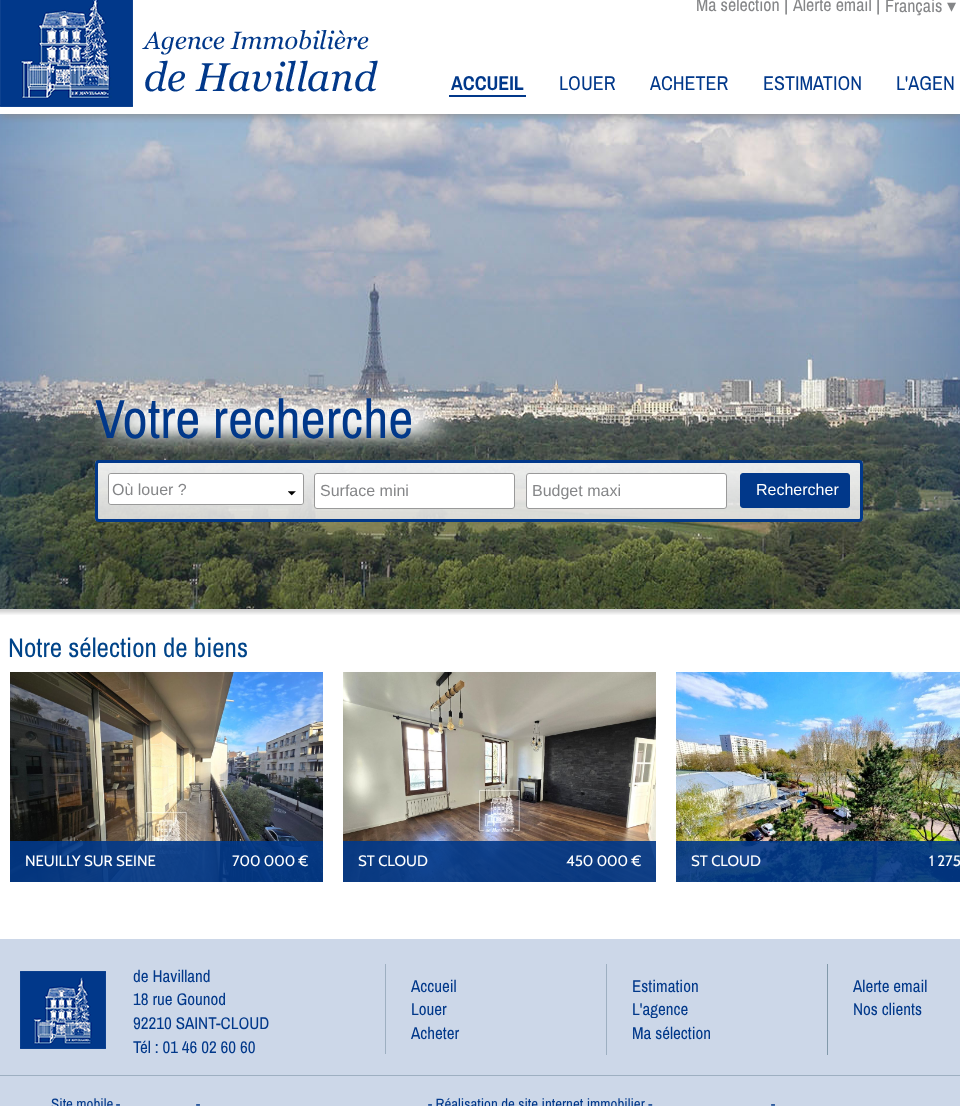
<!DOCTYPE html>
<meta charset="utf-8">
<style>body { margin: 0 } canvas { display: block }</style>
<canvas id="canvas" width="960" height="1106"></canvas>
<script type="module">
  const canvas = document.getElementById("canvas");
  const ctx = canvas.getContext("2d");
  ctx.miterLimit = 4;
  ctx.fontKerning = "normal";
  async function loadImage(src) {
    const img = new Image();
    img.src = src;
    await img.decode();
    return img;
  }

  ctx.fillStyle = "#ffffff";
  ctx.fillRect(0, 0, 960, 1106);
  ctx.drawImage(await loadImage("img2.png"), 0, 114, 960, 495);
  ctx.drawImage(await loadImage("img3.png"), 0, 114, 960, 495);
  ctx.save();
  ctx.beginPath();
  ctx.rect(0, 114, 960, 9);
  ctx.clip();
  ctx.fillStyle = "#888888";
  ctx.filter = "blur(4px)";
  ctx.beginPath();
  ctx.rect(1, -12, 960, 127);
  ctx.fill();
  ctx.filter = "none";
  ctx.restore();
  ctx.drawImage(await loadImage("img1.png"), 0, 0, 378, 107);
  ctx.font = "18px Archivo Narrow";
  ctx.fillStyle = "#858688";
  ctx.fillText("Ma sélection", 696, 11);
  ctx.font = "20px Archivo Narrow";
  ctx.fillText("|", 784, 11);
  ctx.font = "18px Archivo Narrow";
  ctx.fillText("Alerte email", 793, 11);
  ctx.font = "20px Archivo Narrow";
  ctx.fillText("|", 876, 11);
  ctx.font = "18px Archivo Narrow";
  ctx.fillText("Français", 885, 12);
  ctx.font = "18px DejaVu Sans";
  ctx.fillText("▾", 947, 12);
  ctx.fillStyle = "#01388a";
  ctx.fillRect(449, 95, 77, 2);
  ctx.font = "bold 20px Archivo Narrow";
  ctx.fillText("ACCUEIL", 451, 90);
  ctx.font = "20px Archivo Narrow";
  ctx.fillText("LOUER", 559, 90);
  ctx.fillText("ACHETER", 650, 90);
  ctx.fillText("ESTIMATION", 763, 90);
  ctx.fillText("L'AGEN", 896, 90);
  ctx.drawImage(await loadImage("img4.png"), 95, 389, 366, 64);
  ctx.font = "55px Archivo Narrow";
  ctx.fillText("Votre recherche", 95, 438);
  ctx.drawImage(await loadImage("img5.png"), 95, 461, 768, 60);
  ctx.beginPath();
  ctx.roundRect(96.5, 461.5, 765, 59, 2.5);
  ctx.strokeStyle = "#01388a";
  ctx.lineWidth = 3;
  ctx.stroke();
  ctx.beginPath();
  ctx.roundRect(108.5, 473.5, 195, 31, 2.5);
  ctx.strokeStyle = "#999999";
  ctx.lineWidth = 1;
  ctx.stroke();
  ctx.fillStyle = "#ffffff";
  ctx.beginPath();
  ctx.roundRect(109, 474, 194, 30, 2);
  ctx.fill();
  ctx.font = "16px Liberation Sans";
  ctx.fillStyle = "#858688";
  ctx.fillText("Où louer ?", 112, 495);
  ctx.drawImage(await loadImage("img6.png"), 288, 491, 8, 5);
  ctx.fillStyle = "#ffffff";
  ctx.beginPath();
  ctx.roundRect(314.5, 473.5, 200, 35, 2.5);
  ctx.fill();
  ctx.stroke();
  ctx.fillStyle = "#858688";
  ctx.fillText("Surface mini", 320, 496);
  ctx.fillStyle = "#ffffff";
  ctx.beginPath();
  ctx.roundRect(526.5, 473.5, 200, 35, 2.5);
  ctx.fill();
  ctx.stroke();
  ctx.fillStyle = "#858688";
  ctx.fillText("Budget maxi", 532, 496);
  ctx.fillStyle = "#01388a";
  ctx.beginPath();
  ctx.roundRect(740.5, 473.5, 109, 34, 2.5);
  ctx.fill();
  ctx.strokeStyle = "#01388a";
  ctx.stroke();
  ctx.fillStyle = "#ffffff";
  ctx.fillText("Rechercher", 756, 495);
  ctx.drawImage(await loadImage("img7.png"), 0, 609, 960, 6);
  ctx.font = "27px Archivo Narrow";
  ctx.fillStyle = "#004489";
  ctx.fillText("Notre sélection de biens", 8, 657);
  ctx.drawImage(await loadImage("img8.png"), 10, 672, 313, 210);
  ctx.fillStyle = "rgba(1, 57, 137, 0.9)";
  ctx.fillRect(10, 841, 313, 41);
  ctx.font = "15px Cabin";
  ctx.fillStyle = "#ffffff";
  ctx.fillText("NEUILLY SUR SEINE", 25, 866);
  ctx.fillText("700 000 €", 232, 866);
  ctx.drawImage(await loadImage("img9.png"), 343, 672, 313, 210);
  ctx.fillStyle = "rgba(1, 57, 137, 0.9)";
  ctx.fillRect(343, 841, 313, 41);
  ctx.fillStyle = "#ffffff";
  ctx.fillText("ST CLOUD", 358, 866);
  ctx.fillText("450 000 €", 566, 866);
  ctx.drawImage(await loadImage("img10.png"), 676, 672, 284, 210);
  ctx.fillStyle = "rgba(1, 57, 137, 0.9)";
  ctx.fillRect(676, 841, 284, 41);
  ctx.fillStyle = "#ffffff";
  ctx.fillText("ST CLOUD", 691, 866);
  ctx.fillText("1 275", 929, 866);
  ctx.fillStyle = "#ccd7e8";
  ctx.fillRect(0, 939, 960, 167);
  ctx.fillStyle = "#9dafc1";
  ctx.fillRect(0, 1075, 960, 1);
  ctx.fillRect(385, 964, 1, 90);
  ctx.drawImage(await loadImage("img11.png"), 20, 971, 86, 78);
  ctx.font = "17px Archivo Narrow";
  ctx.fillStyle = "#01388a";
  ctx.fillText("de Havilland", 133, 982);
  ctx.fillText("18 rue Gounod", 133, 1005);
  ctx.fillText("92210 SAINT-CLOUD", 133, 1029);
  ctx.fillText("Tél : 01 46 02 60 60", 133, 1053);
  ctx.fillStyle = "#9dafc1";
  ctx.fillRect(606, 964, 1, 91);
  ctx.fillStyle = "#01388a";
  ctx.fillText("Accueil", 411, 992);
  ctx.fillText("Louer", 411, 1015);
  ctx.fillText("Acheter", 411, 1039);
  ctx.fillStyle = "#8199aa";
  ctx.fillRect(827, 964, 1, 91);
  ctx.fillStyle = "#01388a";
  ctx.fillText("Estimation", 632, 992);
  ctx.fillText("L'agence", 632, 1015);
  ctx.fillText("Ma sélection", 632, 1039);
  ctx.fillText("Alerte email", 853, 992);
  ctx.fillText("Nos clients", 853, 1015);
  ctx.font = "15px Archivo Narrow";
  ctx.fillText("Site mobile", 51, 1109);
  ctx.fillText("-", 116, 1109);
  ctx.fillText("-", 196, 1109);
  ctx.fillText("- Réalisation de site internet immobilier -", 428, 1109);
  ctx.fillText("-", 771, 1109);
</script>
